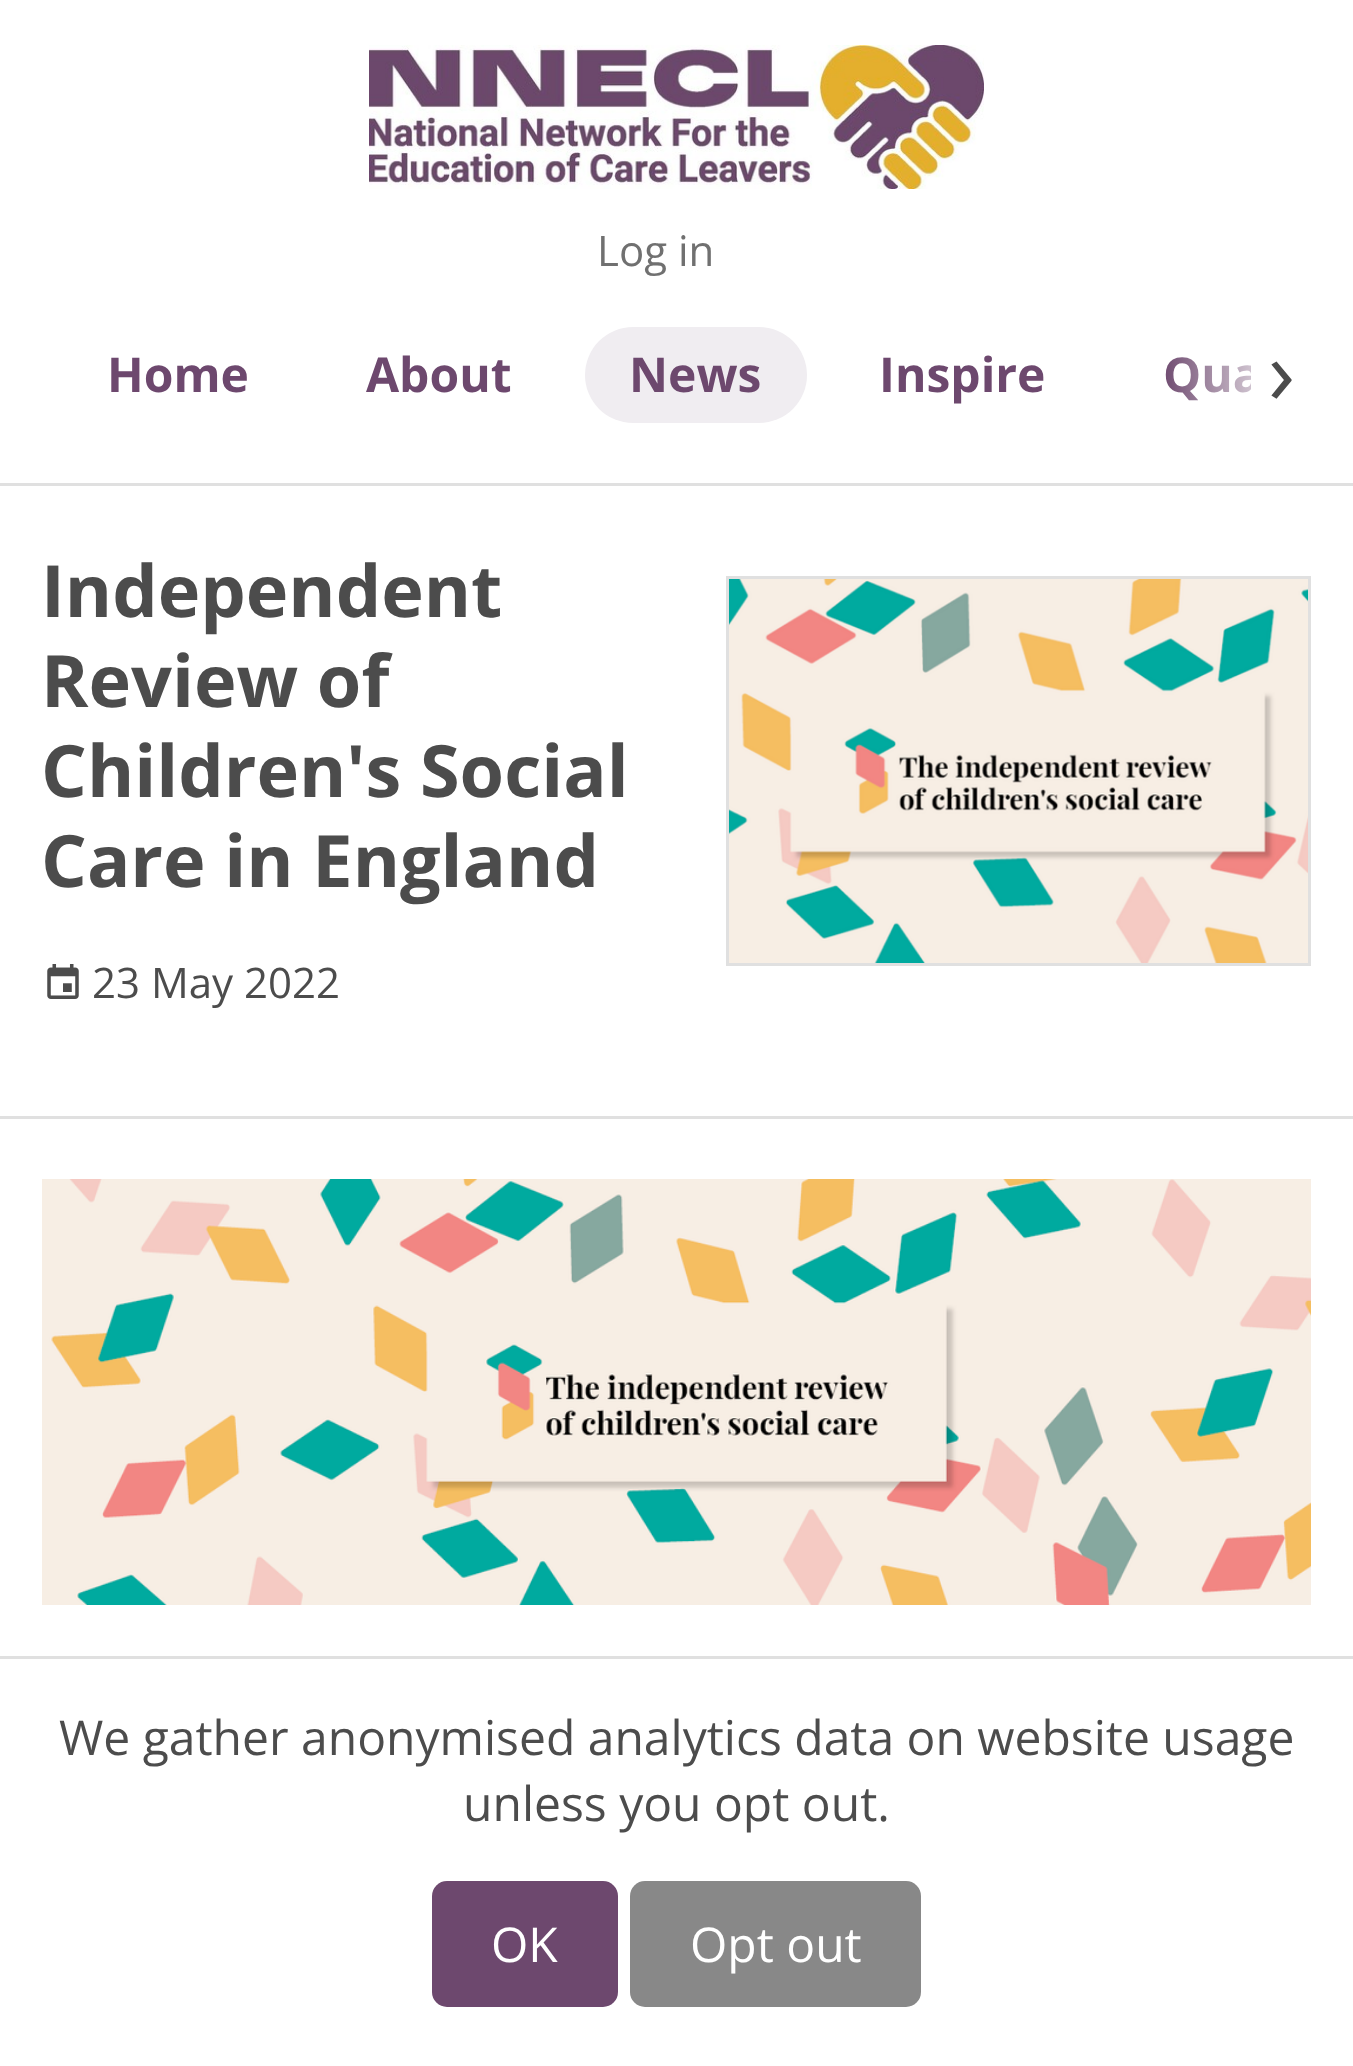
<!DOCTYPE html>
<meta charset="utf-8">
<style>body { margin: 0 } canvas { display: block }</style>
<canvas id="canvas" width="1353" height="2066"></canvas>
<script type="module">
  const canvas = document.getElementById("canvas");
  const ctx = canvas.getContext("2d");
  ctx.miterLimit = 4;
  ctx.fontKerning = "normal";
  async function loadImage(src) {
    const img = new Image();
    img.src = src;
    await img.decode();
    return img;
  }
  let gradient;

  ctx.fillStyle = "#ffffff";
  ctx.fillRect(0, 0, 1353, 2066);
  ctx.drawImage(await loadImage("img1.png"), 369, 45, 615, 144);
  ctx.font = "42px Open Sans";
  ctx.fillStyle = "#707070";
  ctx.fillText("Log in", 597, 266);
  ctx.font = "bold 48px Open Sans";
  ctx.fillStyle = "#6d486e";
  ctx.fillText("Home", 107, 392);
  ctx.fillText("About", 366, 392);
  ctx.fillStyle = "#f0edf1";
  ctx.beginPath();
  ctx.roundRect(585, 327, 222, 96, 48);
  ctx.fill();
  ctx.fillStyle = "#6d486e";
  ctx.fillText("News", 629, 392);
  ctx.fillText("Inspire", 879, 392);
  ctx.save();
  ctx.beginPath();
  ctx.rect(63, 282, 1188, 186);
  ctx.clip();
  ctx.fillText("Qua", 1163, 392);
  ctx.restore();
  gradient = ctx.createLinearGradient(1296, 372, 1161, 372);
  gradient.addColorStop(0, "#ffffff");
  gradient.addColorStop(1, "rgba(255, 255, 255, 0)");
  ctx.fillStyle = gradient;
  ctx.fillRect(1165, 357, 86, 44);
  ctx.font = "90px Open Sans";
  ctx.fillStyle = "#4c4c4c";
  ctx.fillText("›", 1268, 404);
  ctx.fillStyle = "#e0e0e0";
  ctx.fillRect(0, 483, 1353, 3);
  ctx.fillRect(0, 1116, 1353, 3);
  ctx.font = "bold 72px Open Sans";
  ctx.fillStyle = "#4c4c4c";
  ctx.fillText("Independent", 41, 617);
  ctx.fillText("Review of", 41, 707);
  ctx.fillText("Children's Social", 41, 797);
  ctx.fillText("Care in England", 41, 887);
  ctx.drawImage(await loadImage("img2.png"), 47, 964, 32, 35);
  ctx.font = "42px Open Sans";
  ctx.fillText("23 May 2022", 92, 998);
  ctx.strokeStyle = "#e0e0e0";
  ctx.lineWidth = 3;
  ctx.strokeRect(727.5, 577.5, 582, 387);
  ctx.drawImage(await loadImage("img3.png"), 729, 579, 579, 384);
  ctx.drawImage(await loadImage("img4.png"), 42, 1179, 1269, 426);
  ctx.fillStyle = "#e0e0e0";
  ctx.fillRect(0, 1656, 1353, 3);
  ctx.font = "48px Open Sans";
  ctx.fillStyle = "#4c4c4c";
  ctx.fillText("We gather anonymised analytics data on website usage", 59, 1755);
  ctx.fillText("unless you opt out.", 463, 1821);
  ctx.fillStyle = "#6d486e";
  ctx.beginPath();
  ctx.roundRect(432, 1881, 186, 126, 15);
  ctx.fill();
  ctx.fillStyle = "#ffffff";
  ctx.fillText("OK", 491, 1962);
  ctx.fillStyle = "#888888";
  ctx.beginPath();
  ctx.roundRect(630, 1881, 291, 126, 15);
  ctx.fill();
  ctx.fillStyle = "#ffffff";
  ctx.fillText("Opt out", 690, 1962);
</script>
